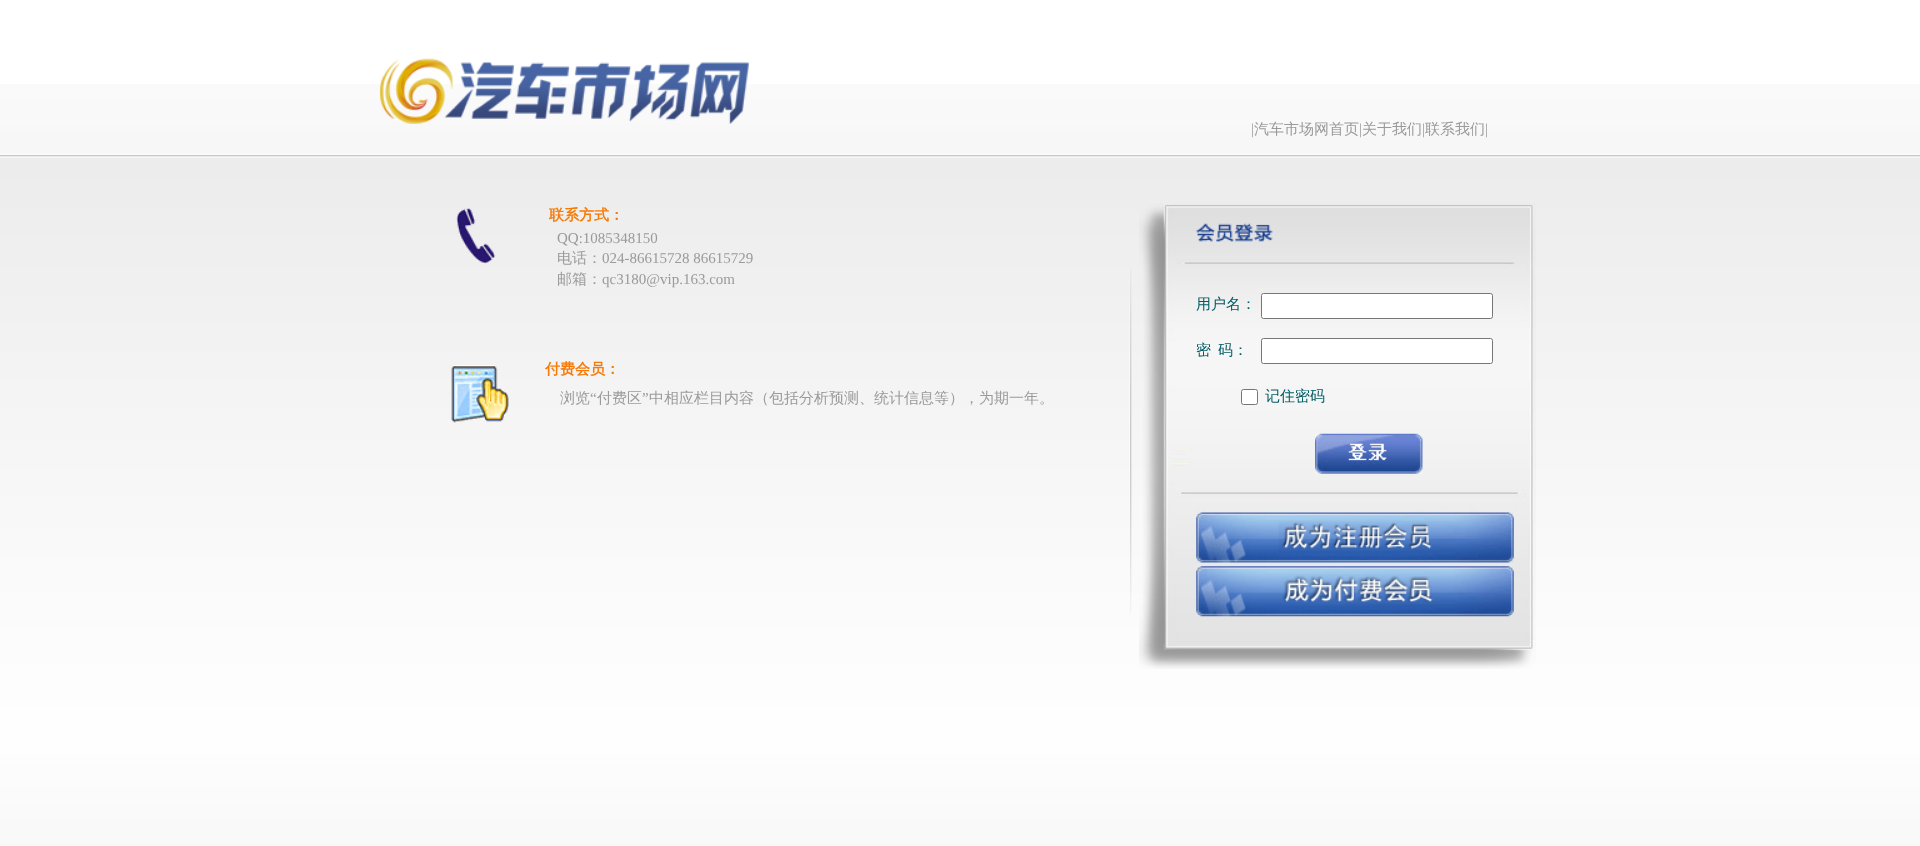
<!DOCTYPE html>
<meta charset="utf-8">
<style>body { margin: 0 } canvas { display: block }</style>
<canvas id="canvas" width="1920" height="846"></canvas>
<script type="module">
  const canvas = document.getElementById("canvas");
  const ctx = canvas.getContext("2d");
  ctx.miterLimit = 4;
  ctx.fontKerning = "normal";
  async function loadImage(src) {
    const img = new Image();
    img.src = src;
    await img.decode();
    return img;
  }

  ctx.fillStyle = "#ffffff";
  ctx.fillRect(0, 0, 1920, 846);
  ctx.drawImage(await loadImage("img1.png"), 0, 84, 1920, 762);
  ctx.drawImage(await loadImage("img2.png"), 379, 58, 370, 66);
  ctx.font = "15px Liberation Serif";
  ctx.fillStyle = "#9a9a9a";
  ctx.fillText("|", 1251, 134);
  ctx.font = "500 15px WenQuanYi Zen Hei";
  ctx.fillText("汽车市场网首页", 1254, 134);
  ctx.font = "15px Liberation Serif";
  ctx.fillText("|", 1359, 134);
  ctx.font = "500 15px WenQuanYi Zen Hei";
  ctx.fillText("关于我们", 1362, 134);
  ctx.font = "15px Liberation Serif";
  ctx.fillText("|", 1422, 134);
  ctx.font = "500 15px WenQuanYi Zen Hei";
  ctx.fillText("联系我们", 1425, 134);
  ctx.font = "15px Liberation Serif";
  ctx.fillText("|", 1485, 134);
  ctx.drawImage(await loadImage("img3.png"), 456, 207, 40, 57);
  ctx.font = "bold 15px WenQuanYi Zen Hei";
  ctx.fillStyle = "#f77b08";
  ctx.fillText("联系方式：", 549, 220);
  ctx.font = "15px Liberation Serif";
  ctx.fillStyle = "#9a9a9a";
  ctx.fillText("QQ:1085348150", 557, 243);
  ctx.font = "500 15px WenQuanYi Zen Hei";
  ctx.fillText("电话：", 557, 263);
  ctx.font = "15px Liberation Serif";
  ctx.fillText("024-86615728 86615729", 602, 263);
  ctx.font = "500 15px WenQuanYi Zen Hei";
  ctx.fillText("邮箱：", 557, 284);
  ctx.font = "15px Liberation Serif";
  ctx.fillText("qc3180@vip.163.com", 602, 284);
  ctx.drawImage(await loadImage("img4.png"), 451, 365, 58, 58);
  ctx.font = "bold 15px WenQuanYi Zen Hei";
  ctx.fillStyle = "#f77b08";
  ctx.fillText("付费会员：", 545, 374);
  ctx.font = "500 15px WenQuanYi Zen Hei";
  ctx.fillStyle = "#9a9a9a";
  ctx.fillText("浏览", 560, 403);
  ctx.font = "15px Liberation Serif";
  ctx.fillText("“", 590, 403);
  ctx.font = "500 15px WenQuanYi Zen Hei";
  ctx.fillText("付费区", 597, 403);
  ctx.font = "15px Liberation Serif";
  ctx.fillText("”", 642, 403);
  ctx.font = "500 15px WenQuanYi Zen Hei";
  ctx.fillText("中相应栏目内容（包括分析预测、统计信息等），为期一年。", 649, 403);
  ctx.drawImage(await loadImage("img5.png"), 1129, 268, 3, 346);
  ctx.drawImage(await loadImage("img6.png"), 1139, 203, 397, 466);
  ctx.fillStyle = "#015b63";
  ctx.fillText("用户名：", 1196, 309);
  ctx.fillStyle = "#ffffff";
  ctx.beginPath();
  ctx.roundRect(1261.5, 293.5, 231, 25, 2);
  ctx.fill();
  ctx.strokeStyle = "#767676";
  ctx.stroke();
  ctx.fillStyle = "#015b63";
  ctx.fillText("密", 1196, 355);
  ctx.fillText("码：", 1218, 355);
  ctx.fillStyle = "#ffffff";
  ctx.beginPath();
  ctx.roundRect(1261.5, 338.5, 231, 25, 2);
  ctx.fill();
  ctx.stroke();
  ctx.beginPath();
  ctx.roundRect(1241.5, 389.5, 16, 15, 2);
  ctx.fill();
  ctx.stroke();
  ctx.fillStyle = "#015b63";
  ctx.fillText("记住密码", 1265, 401);
  ctx.drawImage(await loadImage("img7.png"), 1315, 433, 108, 41);
  ctx.drawImage(await loadImage("img8.png"), 1196, 512, 318, 51);
  ctx.drawImage(await loadImage("img9.png"), 1196, 566, 318, 51);
</script>
